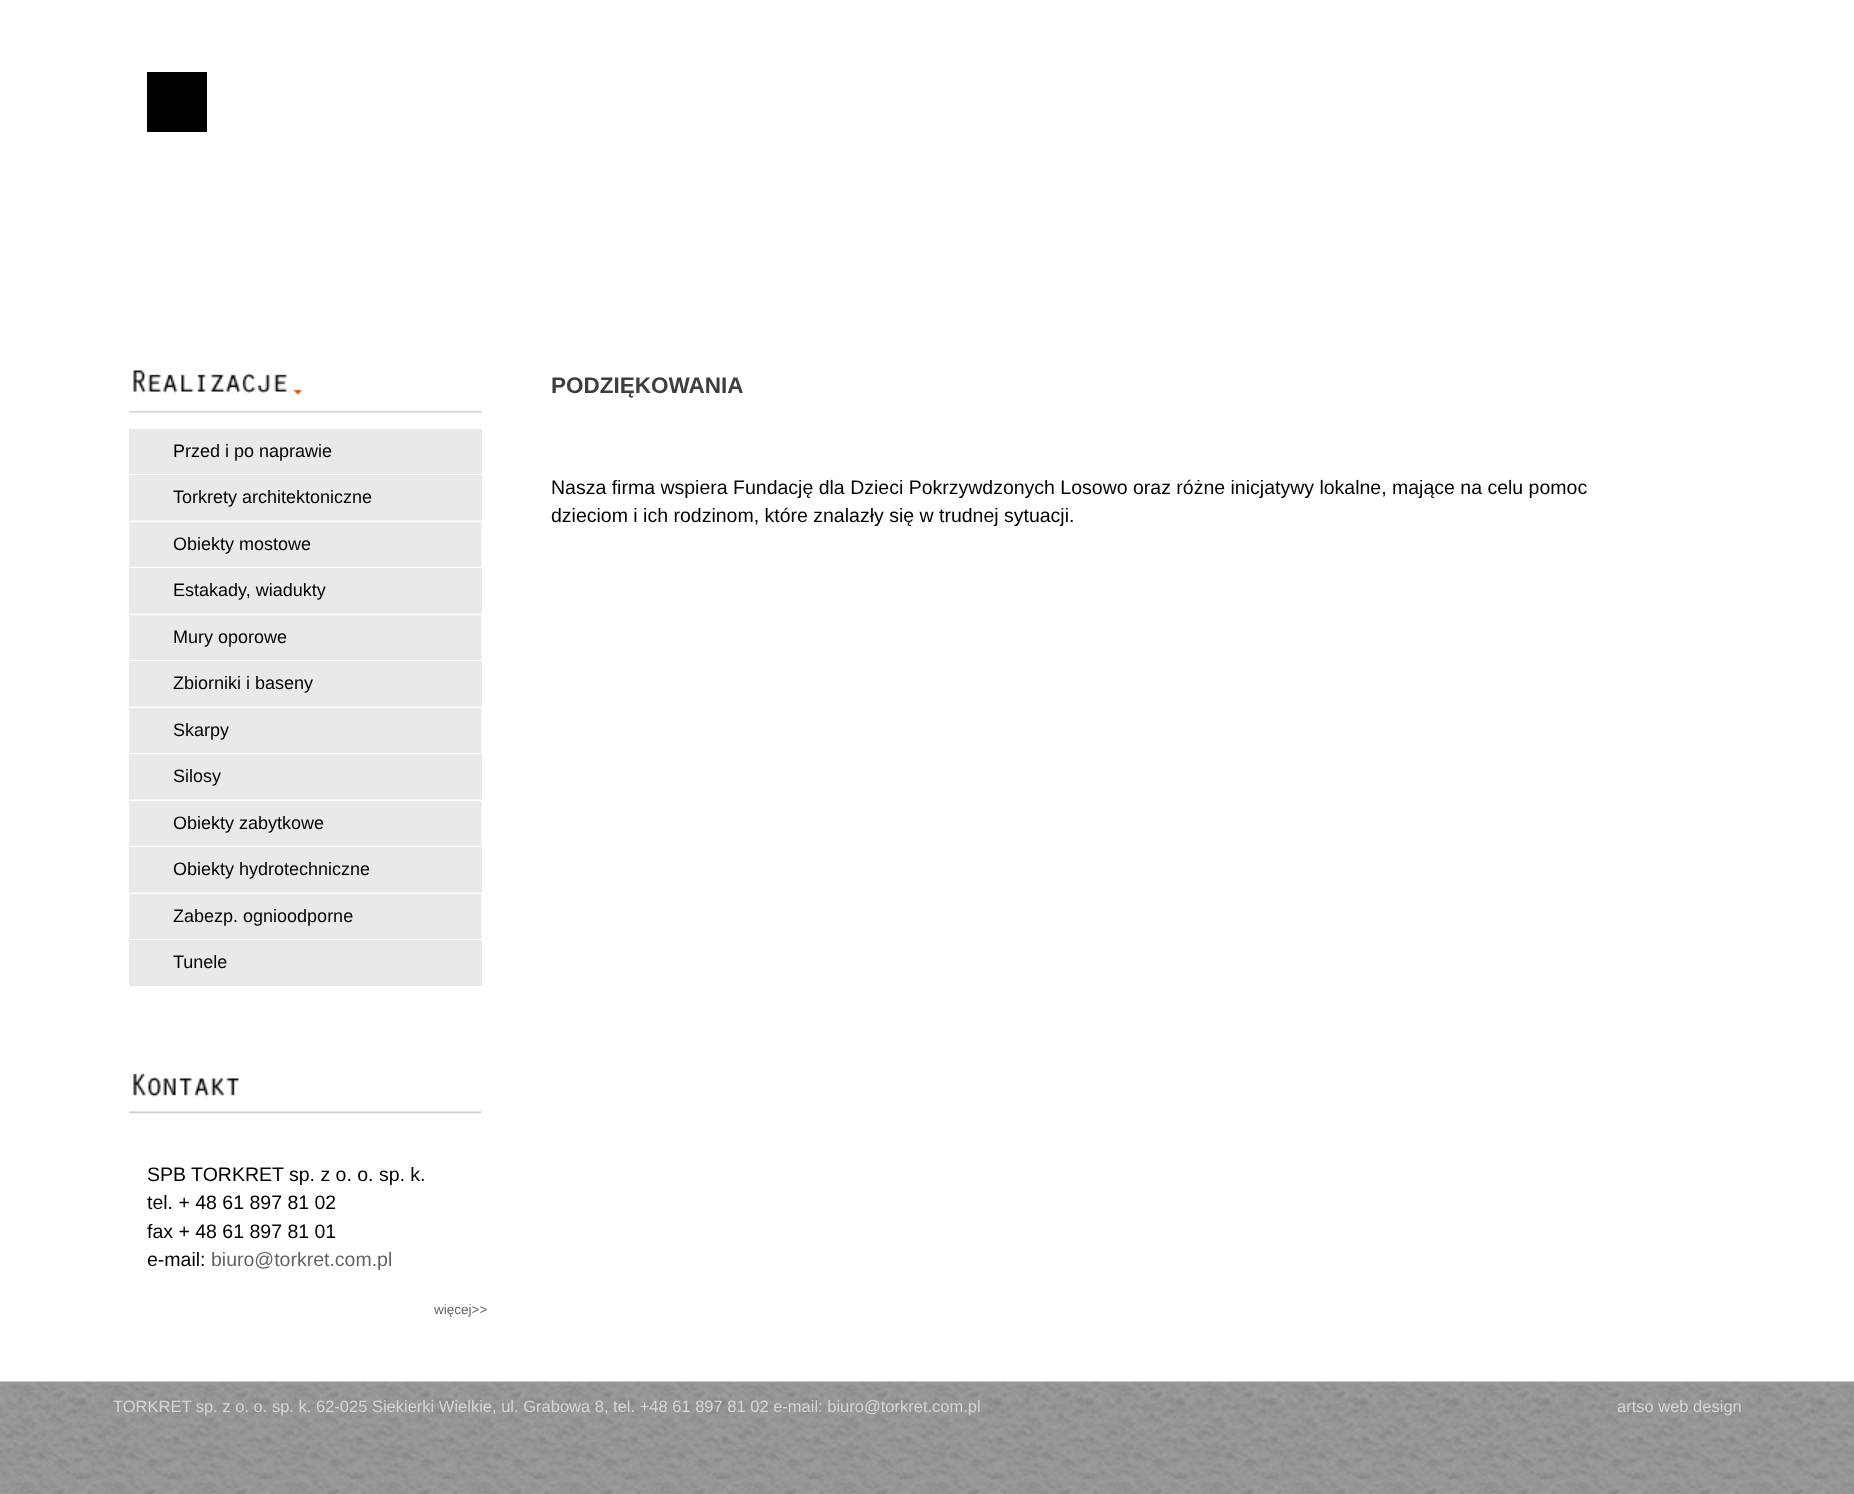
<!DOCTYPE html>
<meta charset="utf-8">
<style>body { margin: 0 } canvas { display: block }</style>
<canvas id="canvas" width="1854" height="1494"></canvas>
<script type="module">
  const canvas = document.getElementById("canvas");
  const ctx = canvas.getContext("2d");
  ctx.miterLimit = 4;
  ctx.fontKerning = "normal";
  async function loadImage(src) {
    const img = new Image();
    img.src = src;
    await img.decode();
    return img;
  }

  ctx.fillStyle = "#ffffff";
  ctx.fillRect(0, 0, 1854, 1494);
  ctx.fillStyle = "#000000";
  ctx.fillRect(147, 72, 60, 60);
  ctx.drawImage(await loadImage("img1.png"), 128, 370, 354, 43);
  ctx.fillStyle = "#e9e9e9";
  ctx.fillRect(129, 429, 353, 45);
  ctx.font = "18px Liberation Sans";
  ctx.fillStyle = "#000000";
  ctx.fillText("Przed i po naprawie", 173, 457);
  ctx.fillStyle = "#e9e9e9";
  ctx.fillRect(129, 475, 353, 46);
  ctx.fillStyle = "#000000";
  ctx.fillText("Torkrety architektoniczne", 173, 503);
  ctx.drawImage(await loadImage("img2.png"), 129, 520, 353, 47);
  ctx.fillText("Obiekty mostowe", 173, 550);
  ctx.fillStyle = "#e9e9e9";
  ctx.fillRect(129, 568, 353, 46);
  ctx.fillStyle = "#000000";
  ctx.fillText("Estakady, wiadukty", 173, 596);
  ctx.drawImage(await loadImage("img2.png"), 129, 613, 353, 47);
  ctx.fillText("Mury oporowe", 173, 643);
  ctx.fillStyle = "#e9e9e9";
  ctx.fillRect(129, 661, 353, 46);
  ctx.fillStyle = "#000000";
  ctx.fillText("Zbiorniki i baseny", 173, 689);
  ctx.drawImage(await loadImage("img2.png"), 129, 706, 353, 47);
  ctx.fillText("Skarpy", 173, 736);
  ctx.fillStyle = "#e9e9e9";
  ctx.fillRect(129, 754, 353, 46);
  ctx.fillStyle = "#000000";
  ctx.fillText("Silosy", 173, 782);
  ctx.drawImage(await loadImage("img2.png"), 129, 799, 353, 47);
  ctx.fillText("Obiekty zabytkowe", 173, 829);
  ctx.fillStyle = "#e9e9e9";
  ctx.fillRect(129, 847, 353, 46);
  ctx.fillStyle = "#000000";
  ctx.fillText("Obiekty hydrotechniczne", 173, 875);
  ctx.drawImage(await loadImage("img2.png"), 129, 892, 353, 47);
  ctx.fillText("Zabezp. ognioodporne", 173, 922);
  ctx.fillStyle = "#e9e9e9";
  ctx.fillRect(129, 940, 353, 46);
  ctx.fillStyle = "#000000";
  ctx.fillText("Tunele", 173, 968);
  ctx.drawImage(await loadImage("img3.png"), 128, 1072, 354, 42);
  ctx.font = "19.5px Liberation Sans";
  ctx.fillText("SPB TORKRET sp. z o. o. sp. k.", 147, 1181);
  ctx.fillText("tel. + 48 61 897 81 02", 147, 1209);
  ctx.fillText("fax + 48 61 897 81 01", 147, 1238);
  ctx.fillText("e-mail:", 147, 1266);
  ctx.fillStyle = "#636363";
  ctx.fillText("biuro@torkret.com.pl", 211, 1266);
  ctx.font = "13.5px Liberation Sans";
  ctx.fillText("więcej>>", 434, 1314);
  ctx.font = "bold 22.5px Liberation Sans";
  ctx.fillStyle = "#3e3e3e";
  ctx.fillText("PODZIĘKOWANIA", 551, 393);
  ctx.font = "19.5px Liberation Sans";
  ctx.fillStyle = "#000000";
  ctx.fillText("Nasza firma wspiera Fundację dla Dzieci Pokrzywdzonych Losowo oraz różne inicjatywy lokalne, mające na celu pomoc", 551, 494);
  ctx.fillText("dzieciom i ich rodzinom, które znalazły się w trudnej sytuacji.", 551, 522);
  ctx.drawImage(await loadImage("img4.png"), 0, 1381, 1854, 113);
  ctx.font = "16.5px Liberation Sans";
  ctx.fillStyle = "#d6d6d6";
  ctx.fillText("TORKRET sp. z o. o. sp. k. 62-025 Siekierki Wielkie, ul. Grabowa 8, tel. +48 61 897 81 02 e-mail: biuro@torkret.com.pl", 113, 1412);
  ctx.fillText("artso web design", 1617, 1412);
</script>
